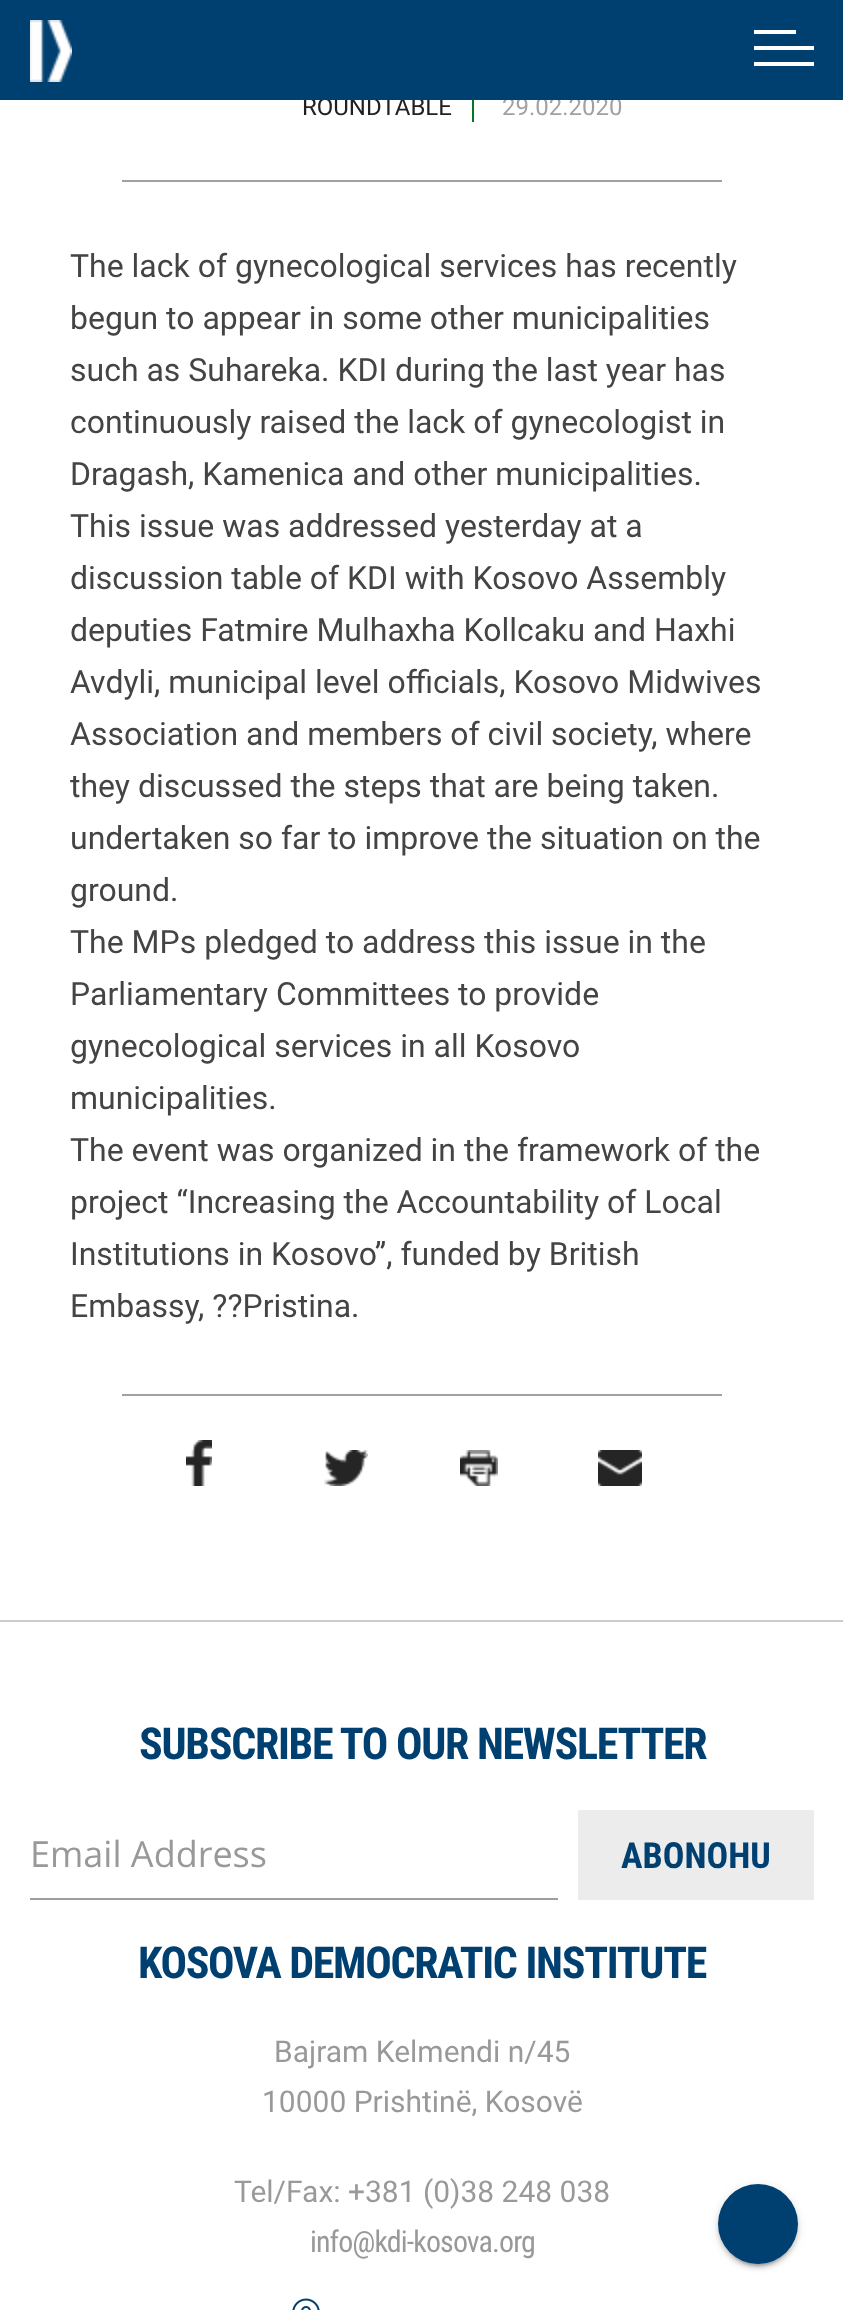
<!DOCTYPE html>
<meta charset="utf-8">
<style>body { margin: 0 } canvas { display: block }</style>
<canvas id="canvas" width="843" height="2310"></canvas>
<script type="module">
  const canvas = document.getElementById("canvas");
  const ctx = canvas.getContext("2d");
  ctx.miterLimit = 4;
  ctx.fontKerning = "normal";
  async function loadImage(src) {
    const img = new Image();
    img.src = src;
    await img.decode();
    return img;
  }

  ctx.fillStyle = "#ffffff";
  ctx.fillRect(0, 0, 843, 2310);
  ctx.font = "24px Roboto";
  ctx.fillStyle = "#212121";
  ctx.fillText("ROUNDTABLE", 302, 115);
  ctx.fillStyle = "#087526";
  ctx.fillRect(472, 94, 2, 28);
  ctx.fillStyle = "#a1a1a1";
  ctx.fillText("29.02.2020", 502, 115);
  ctx.fillStyle = "#004071";
  ctx.fillRect(0, 0, 843, 100);
  ctx.drawImage(await loadImage("img1.png"), 30, 20, 42, 62);
  ctx.fillStyle = "#ffffff";
  ctx.fillRect(754, 30, 42, 4);
  ctx.fillRect(754, 46, 60, 4);
  ctx.fillRect(754, 62, 60, 4);
  ctx.fillStyle = "#a1a1a1";
  ctx.fillRect(122, 180, 600, 2);
  ctx.font = "32px Roboto";
  ctx.fillStyle = "#444444";
  ctx.fillText("The lack of gynecological services has recently", 70, 277);
  ctx.fillText("begun to appear in some other municipalities", 70, 329);
  ctx.fillText("such as Suhareka. KDI during the last year has", 70, 381);
  ctx.fillText("continuously raised the lack of gynecologist in", 70, 433);
  ctx.fillText("Dragash, Kamenica and other municipalities.", 70, 485);
  ctx.fillText("This issue was addressed yesterday at a", 70, 537);
  ctx.fillText("discussion table of KDI with Kosovo Assembly", 70, 589);
  ctx.fillText("deputies Fatmire Mulhaxha Kollcaku and Haxhi", 70, 641);
  ctx.fillText("Avdyli, municipal level officials, Kosovo Midwives", 70, 693);
  ctx.fillText("Association and members of civil society, where", 70, 745);
  ctx.fillText("they discussed the steps that are being taken.", 70, 797);
  ctx.fillText("undertaken so far to improve the situation on the", 70, 849);
  ctx.fillText("ground.", 70, 901);
  ctx.fillText("The MPs pledged to address this issue in the", 70, 953);
  ctx.fillText("Parliamentary Committees to provide", 70, 1005);
  ctx.fillText("gynecological services in all Kosovo", 70, 1057);
  ctx.fillText("municipalities.", 70, 1109);
  ctx.fillText("The event was organized in the framework of the", 70, 1161);
  ctx.fillText("project “Increasing the Accountability of Local", 70, 1213);
  ctx.fillText("Institutions in Kosovo”, funded by British", 70, 1265);
  ctx.fillText("Embassy, ??Pristina.", 70, 1317);
  ctx.fillStyle = "#a1a1a1";
  ctx.fillRect(122, 1394, 600, 2);
  ctx.drawImage(await loadImage("img2.png"), 186, 1440, 26, 46);
  ctx.drawImage(await loadImage("img3.png"), 324, 1450, 44, 36);
  ctx.drawImage(await loadImage("img4.png"), 460, 1450, 38, 36);
  ctx.drawImage(await loadImage("img5.png"), 598, 1450, 44, 36);
  ctx.fillStyle = "rgba(0, 0, 0, 0.2)";
  ctx.filter = "blur(1px)";
  ctx.beginPath();
  ctx.roundRect(722, 2194, 72, 72, 36);
  ctx.fill();
  ctx.filter = "none";
  ctx.fillStyle = "rgba(0, 0, 0, 0.12)";
  ctx.filter = "blur(5px)";
  ctx.beginPath();
  ctx.roundRect(718, 2186, 80, 80, 40);
  ctx.fill();
  ctx.filter = "none";
  ctx.fillStyle = "rgba(0, 0, 0, 0.14)";
  ctx.filter = "blur(2px)";
  ctx.beginPath();
  ctx.roundRect(718, 2188, 80, 80, 40);
  ctx.fill();
  ctx.filter = "none";
  ctx.fillStyle = "#004071";
  ctx.beginPath();
  ctx.arc(758, 2224, 40, 0, Math.PI * 2);
  ctx.fill();
  ctx.fillStyle = "#cccccc";
  ctx.fillRect(0, 1620, 843, 2);
  ctx.letterSpacing = "-1.3px";
  ctx.font = "bold 44px Roboto Condensed";
  ctx.fillStyle = "#004071";
  ctx.fillText("SUBSCRIBE TO OUR NEWSLETTER", 139, 1759);
  ctx.letterSpacing = "0px";
  ctx.font = "36px Open Sans";
  ctx.fillStyle = "#999999";
  ctx.fillText("Email Address", 30, 1867);
  ctx.fillStyle = "#ececec";
  ctx.fillRect(578, 1810, 236, 90);
  ctx.font = "bold 36px Roboto Condensed";
  ctx.fillStyle = "#004071";
  ctx.fillText("ABONOHU", 621, 1868);
  ctx.fillStyle = "#9e9e9e";
  ctx.fillRect(30, 1898, 528, 2);
  ctx.letterSpacing = "-1.3px";
  ctx.font = "bold 44px Roboto Condensed";
  ctx.fillStyle = "#004071";
  ctx.fillText("KOSOVA DEMOCRATIC INSTITUTE", 138, 1978);
  ctx.letterSpacing = "0px";
  ctx.font = "30px Roboto";
  ctx.fillStyle = "#999999";
  ctx.fillText("Bajram Kelmendi n/45", 274, 2062);
  ctx.fillText("10000 Prishtinë, Kosovë", 262, 2112);
  ctx.fillText("Tel/Fax: +381 (0)38 248 038", 234, 2202);
  ctx.letterSpacing = "-0.9px";
  ctx.font = "30px Roboto Condensed";
  ctx.fillText("info@kdi-kosova.org", 310, 2252);
  ctx.drawImage(await loadImage("img6.png"), 292, 2298, 28, 12);
</script>
